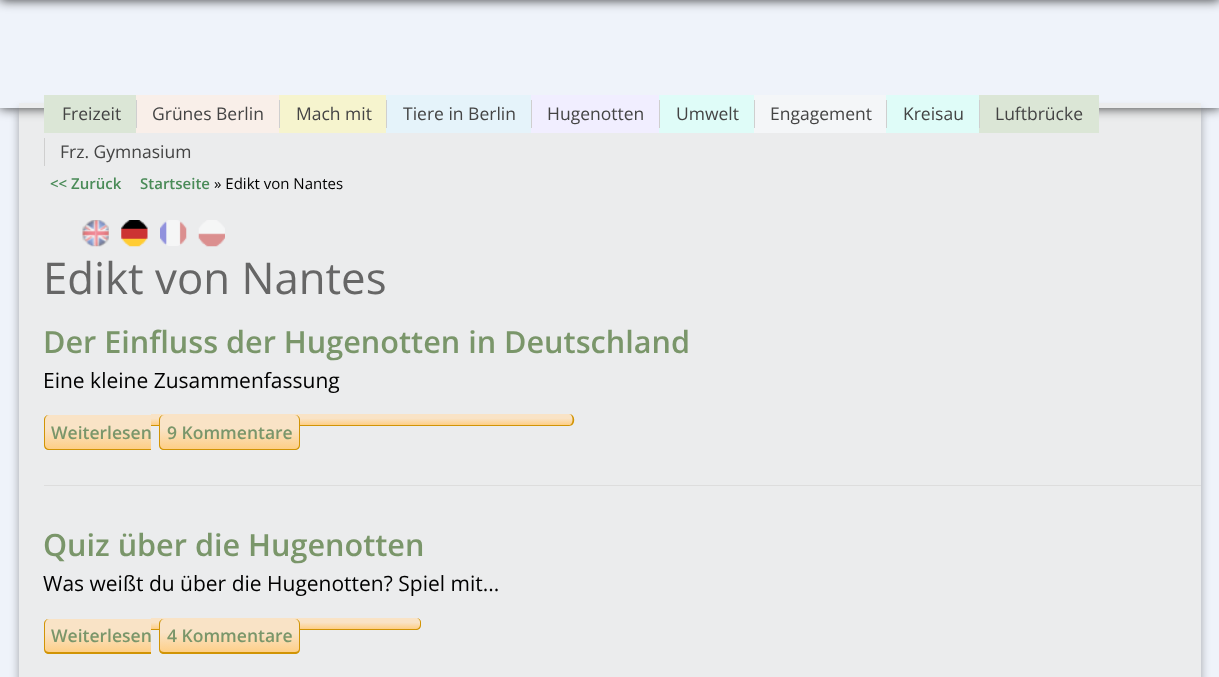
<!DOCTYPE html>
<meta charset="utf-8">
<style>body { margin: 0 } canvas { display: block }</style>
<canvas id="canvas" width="1219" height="677"></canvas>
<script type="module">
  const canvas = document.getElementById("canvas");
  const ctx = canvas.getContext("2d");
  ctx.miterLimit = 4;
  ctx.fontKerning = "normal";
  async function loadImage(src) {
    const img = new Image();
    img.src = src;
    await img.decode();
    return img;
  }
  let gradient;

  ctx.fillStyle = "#eff3fa";
  ctx.fillRect(0, 0, 1219, 677);
  ctx.fillStyle = "rgba(0, 0, 0, 0.8)";
  ctx.filter = "blur(6px)";
  ctx.beginPath();
  ctx.rect(0, -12, 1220, 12);
  ctx.fill();
  ctx.filter = "none";
  ctx.fillStyle = "rgba(0, 0, 0, 0.33)";
  ctx.filter = "blur(5px)";
  ctx.beginPath();
  ctx.rect(19, 110, 1182, 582);
  ctx.fill();
  ctx.filter = "none";
  ctx.fillStyle = "#ebeced";
  ctx.fillRect(19, 103, 1182, 574);
  ctx.save();
  ctx.beginPath();
  ctx.moveTo(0, 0);
  ctx.lineTo(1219, 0);
  ctx.lineTo(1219, 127);
  ctx.lineTo(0, 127);
  ctx.closePath();
  ctx.moveTo(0, -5);
  ctx.lineTo(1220, -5);
  ctx.lineTo(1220, 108);
  ctx.lineTo(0, 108);
  ctx.closePath();
  ctx.clip("evenodd");
  ctx.fillStyle = "rgba(0, 0, 0, 0.8)";
  ctx.filter = "blur(6px)";
  ctx.beginPath();
  ctx.rect(0, -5, 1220, 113);
  ctx.fill();
  ctx.filter = "none";
  ctx.restore();
  ctx.fillStyle = "#dbe6d6";
  ctx.fillRect(44, 95, 92, 38);
  ctx.font = "17.5px Open Sans";
  ctx.fillStyle = "#444444";
  ctx.fillText("Freizeit", 62, 120);
  ctx.fillStyle = "#f9efe9";
  ctx.fillRect(136, 95, 143, 38);
  ctx.fillStyle = "#cfcfcf";
  ctx.fillRect(136, 100, 1, 28);
  ctx.fillStyle = "#444444";
  ctx.fillText("Grünes Berlin", 152, 120);
  ctx.fillStyle = "#f6f4ce";
  ctx.fillRect(279, 95, 107, 38);
  ctx.fillStyle = "#cfcfcf";
  ctx.fillRect(279, 100, 1, 28);
  ctx.fillStyle = "#444444";
  ctx.fillText("Mach mit", 296, 120);
  ctx.fillStyle = "#e5f3fa";
  ctx.fillRect(386, 95, 145, 38);
  ctx.fillStyle = "#cfcfcf";
  ctx.fillRect(386, 100, 1, 28);
  ctx.fillStyle = "#444444";
  ctx.fillText("Tiere in Berlin", 403, 120);
  ctx.fillStyle = "#f1eeff";
  ctx.fillRect(531, 95, 128, 38);
  ctx.fillStyle = "#cfcfcf";
  ctx.fillRect(531, 100, 1, 28);
  ctx.fillStyle = "#444444";
  ctx.fillText("Hugenotten", 547, 120);
  ctx.fillStyle = "#dffcf8";
  ctx.fillRect(659, 95, 95, 38);
  ctx.fillStyle = "#cfcfcf";
  ctx.fillRect(659, 100, 1, 28);
  ctx.fillStyle = "#444444";
  ctx.fillText("Umwelt", 676, 120);
  ctx.fillStyle = "#f4f6f8";
  ctx.fillRect(754, 95, 132, 38);
  ctx.fillStyle = "#cfcfcf";
  ctx.fillRect(754, 100, 1, 28);
  ctx.fillStyle = "#444444";
  ctx.fillText("Engagement", 770, 120);
  ctx.fillStyle = "#dffcf8";
  ctx.fillRect(886, 95, 93, 38);
  ctx.fillStyle = "#cfcfcf";
  ctx.fillRect(886, 100, 1, 28);
  ctx.fillStyle = "#444444";
  ctx.fillText("Kreisau", 903, 120);
  ctx.fillStyle = "#dbe6d6";
  ctx.fillRect(979, 95, 120, 38);
  ctx.fillStyle = "#cfcfcf";
  ctx.fillRect(979, 100, 1, 28);
  ctx.fillStyle = "#444444";
  ctx.fillText("Luftbrücke", 995, 120);
  ctx.fillStyle = "#cfcfcf";
  ctx.fillRect(44, 138, 1, 28);
  ctx.fillStyle = "#444444";
  ctx.fillText("Frz. Gymnasium", 60, 158);
  ctx.font = "600 15px Open Sans";
  ctx.fillStyle = "#4a8b58";
  ctx.fillText("<< Zurück", 50, 189);
  ctx.fillText("Startseite", 140, 189);
  ctx.font = "15px Open Sans";
  ctx.fillStyle = "#000000";
  ctx.fillText("» Edikt von Nantes", 214, 189);
  ctx.drawImage(await loadImage("img1.png"), 82, 220, 27, 27);
  ctx.drawImage(await loadImage("img2.png"), 121, 220, 27, 27);
  ctx.drawImage(await loadImage("img3.png"), 160, 220, 27, 26);
  ctx.drawImage(await loadImage("img4.png"), 198, 220, 27, 27);
  ctx.font = "43.75px Open Sans";
  ctx.fillStyle = "#666666";
  ctx.fillText("Edikt von Nantes", 43, 294);
  ctx.fillStyle = "#dddddd";
  ctx.fillRect(44, 485, 1157, 1);
  ctx.font = "600 30.6px Open Sans";
  ctx.fillStyle = "#7a966a";
  ctx.fillText("Der Einfluss der Hugenotten in Deutschland", 43, 353);
  ctx.font = "21px Open Sans";
  ctx.fillStyle = "#000000";
  ctx.fillText("Eine kleine Zusammenfassung", 43, 388);
  ctx.save();
  ctx.beginPath();
  ctx.roundRect(44, 415, 107, 35, [5, 0, 0, 5]);
  ctx.clip();
  gradient = ctx.createLinearGradient(98, 415, 98, 449);
  gradient.addColorStop(0, "#f9e3c6");
  gradient.addColorStop(0.4, "#f9e3c6");
  gradient.addColorStop(1, "#fece85");
  ctx.fillStyle = gradient;
  ctx.beginPath();
  ctx.roundRect(44, 415, 107, 34, [5, 0, 0, 0]);
  ctx.fill();
  ctx.restore();
  ctx.fillStyle = "#d19405";
  ctx.beginPath();
  ctx.moveTo(49, 415);
  ctx.lineTo(151, 415);
  ctx.lineTo(151, 450);
  ctx.lineTo(49, 450);
  ctx.bezierCurveTo(46, 450, 44, 448, 44, 445);
  ctx.lineTo(44, 420);
  ctx.bezierCurveTo(44, 417, 46, 415, 49, 415);
  ctx.closePath();
  ctx.moveTo(49, 415);
  ctx.lineTo(151, 415);
  ctx.lineTo(151, 449);
  ctx.lineTo(49, 449);
  ctx.bezierCurveTo(47, 449, 45, 447, 45, 445);
  ctx.lineTo(45, 420);
  ctx.bezierCurveTo(45, 417, 47, 415, 49, 415);
  ctx.closePath();
  ctx.fill("evenodd");
  ctx.font = "600 17.5px Open Sans";
  ctx.fillStyle = "#7a966a";
  ctx.fillText("Weiterlesen", 51, 439);
  ctx.save();
  ctx.beginPath();
  ctx.roundRect(151, 414, 423, 12, [0, 5, 5, 0]);
  ctx.clip();
  gradient = ctx.createLinearGradient(362, 414, 362, 425);
  gradient.addColorStop(0, "#f9e3c6");
  gradient.addColorStop(0.4, "#f9e3c6");
  gradient.addColorStop(1, "#fece85");
  ctx.fillStyle = gradient;
  ctx.beginPath();
  ctx.roundRect(151, 414, 423, 11, [0, 5, 0, 0]);
  ctx.fill();
  ctx.restore();
  ctx.fillStyle = "#d19405";
  ctx.beginPath();
  ctx.moveTo(151, 414);
  ctx.lineTo(569, 414);
  ctx.bezierCurveTo(576, 414, 576, 426, 569, 426);
  ctx.lineTo(151, 426);
  ctx.closePath();
  ctx.moveTo(151, 414);
  ctx.lineTo(569, 414);
  ctx.bezierCurveTo(573, 414, 574, 423, 570, 425);
  ctx.lineTo(151, 425);
  ctx.closePath();
  ctx.fill("evenodd");
  ctx.save();
  ctx.beginPath();
  ctx.roundRect(159, 415, 141, 35, 5);
  ctx.clip();
  gradient = ctx.createLinearGradient(229, 415, 229, 449);
  gradient.addColorStop(0, "#f9e3c6");
  gradient.addColorStop(0.4, "#f9e3c6");
  gradient.addColorStop(1, "#fece85");
  ctx.fillStyle = gradient;
  ctx.beginPath();
  ctx.roundRect(159, 415, 141, 34, [5, 5, 0, 0]);
  ctx.fill();
  ctx.restore();
  ctx.beginPath();
  ctx.moveTo(164, 415);
  ctx.lineTo(295, 415);
  ctx.bezierCurveTo(298, 415, 300, 417, 300, 420);
  ctx.lineTo(300, 445);
  ctx.bezierCurveTo(300, 448, 298, 450, 295, 450);
  ctx.lineTo(164, 450);
  ctx.bezierCurveTo(161, 450, 159, 448, 159, 445);
  ctx.lineTo(159, 420);
  ctx.bezierCurveTo(159, 417, 161, 415, 164, 415);
  ctx.closePath();
  ctx.moveTo(164, 415);
  ctx.lineTo(295, 415);
  ctx.bezierCurveTo(297, 415, 299, 417, 299, 420);
  ctx.lineTo(299, 445);
  ctx.bezierCurveTo(299, 447, 297, 449, 295, 449);
  ctx.lineTo(164, 449);
  ctx.bezierCurveTo(162, 449, 160, 447, 160, 445);
  ctx.lineTo(160, 420);
  ctx.bezierCurveTo(160, 417, 162, 415, 164, 415);
  ctx.closePath();
  ctx.fill("evenodd");
  ctx.fillStyle = "#7a966a";
  ctx.fillText("9 Kommentare", 167, 439);
  ctx.font = "600 30.6px Open Sans";
  ctx.fillText("Quiz über die Hugenotten", 43, 556);
  ctx.font = "21px Open Sans";
  ctx.fillStyle = "#000000";
  ctx.fillText("Was weißt du über die Hugenotten? Spiel mit...", 43, 591);
  ctx.save();
  ctx.beginPath();
  ctx.roundRect(44, 619, 107, 35, [5, 0, 0, 5]);
  ctx.clip();
  gradient = ctx.createLinearGradient(98, 619, 98, 653);
  gradient.addColorStop(0, "#f9e3c6");
  gradient.addColorStop(0.4, "#f9e3c6");
  gradient.addColorStop(1, "#fece85");
  ctx.fillStyle = gradient;
  ctx.beginPath();
  ctx.roundRect(44, 619, 107, 34, [5, 0, 0, 0]);
  ctx.fill();
  ctx.restore();
  ctx.fillStyle = "#d19405";
  ctx.beginPath();
  ctx.moveTo(49, 619);
  ctx.lineTo(151, 619);
  ctx.lineTo(151, 654);
  ctx.lineTo(49, 654);
  ctx.bezierCurveTo(46, 654, 44, 652, 44, 649);
  ctx.lineTo(44, 624);
  ctx.bezierCurveTo(44, 621, 46, 619, 49, 619);
  ctx.closePath();
  ctx.moveTo(49, 619);
  ctx.lineTo(151, 619);
  ctx.lineTo(151, 652);
  ctx.lineTo(49, 652);
  ctx.bezierCurveTo(47, 652, 45, 651, 45, 649);
  ctx.lineTo(45, 624);
  ctx.bezierCurveTo(45, 621, 47, 619, 49, 619);
  ctx.closePath();
  ctx.fill("evenodd");
  ctx.font = "600 17.5px Open Sans";
  ctx.fillStyle = "#7a966a";
  ctx.fillText("Weiterlesen", 51, 642);
  ctx.save();
  ctx.beginPath();
  ctx.roundRect(151, 618, 270, 12, [0, 5, 5, 0]);
  ctx.clip();
  gradient = ctx.createLinearGradient(286, 618, 286, 629);
  gradient.addColorStop(0, "#f9e3c6");
  gradient.addColorStop(0.4, "#f9e3c6");
  gradient.addColorStop(1, "#fece85");
  ctx.fillStyle = gradient;
  ctx.beginPath();
  ctx.roundRect(151, 618, 270, 11, [0, 5, 0, 0]);
  ctx.fill();
  ctx.restore();
  ctx.fillStyle = "#d19405";
  ctx.beginPath();
  ctx.moveTo(151, 618);
  ctx.lineTo(416, 618);
  ctx.bezierCurveTo(419, 618, 421, 620, 421, 622);
  ctx.lineTo(421, 625);
  ctx.bezierCurveTo(421, 628, 419, 630, 416, 630);
  ctx.lineTo(151, 630);
  ctx.closePath();
  ctx.moveTo(151, 618);
  ctx.lineTo(416, 618);
  ctx.bezierCurveTo(418, 618, 420, 620, 420, 622);
  ctx.lineTo(420, 625);
  ctx.bezierCurveTo(420, 627, 418, 629, 416, 629);
  ctx.lineTo(151, 629);
  ctx.closePath();
  ctx.fill("evenodd");
  ctx.save();
  ctx.beginPath();
  ctx.roundRect(159, 619, 141, 35, 5);
  ctx.clip();
  gradient = ctx.createLinearGradient(229, 619, 229, 653);
  gradient.addColorStop(0, "#f9e3c6");
  gradient.addColorStop(0.4, "#f9e3c6");
  gradient.addColorStop(1, "#fece85");
  ctx.fillStyle = gradient;
  ctx.beginPath();
  ctx.roundRect(159, 619, 141, 34, [5, 5, 0, 0]);
  ctx.fill();
  ctx.restore();
  ctx.beginPath();
  ctx.moveTo(164, 619);
  ctx.lineTo(295, 619);
  ctx.bezierCurveTo(298, 619, 300, 621, 300, 624);
  ctx.lineTo(300, 649);
  ctx.bezierCurveTo(300, 652, 298, 654, 295, 654);
  ctx.lineTo(164, 654);
  ctx.bezierCurveTo(161, 654, 159, 652, 159, 649);
  ctx.lineTo(159, 624);
  ctx.bezierCurveTo(159, 621, 161, 619, 164, 619);
  ctx.closePath();
  ctx.moveTo(164, 619);
  ctx.lineTo(295, 619);
  ctx.bezierCurveTo(297, 619, 299, 621, 299, 624);
  ctx.lineTo(299, 649);
  ctx.bezierCurveTo(299, 651, 297, 652, 295, 652);
  ctx.lineTo(164, 652);
  ctx.bezierCurveTo(162, 652, 160, 651, 160, 649);
  ctx.lineTo(160, 624);
  ctx.bezierCurveTo(160, 621, 162, 619, 164, 619);
  ctx.closePath();
  ctx.fill("evenodd");
  ctx.fillStyle = "#7a966a";
  ctx.fillText("4 Kommentare", 167, 642);
</script>
